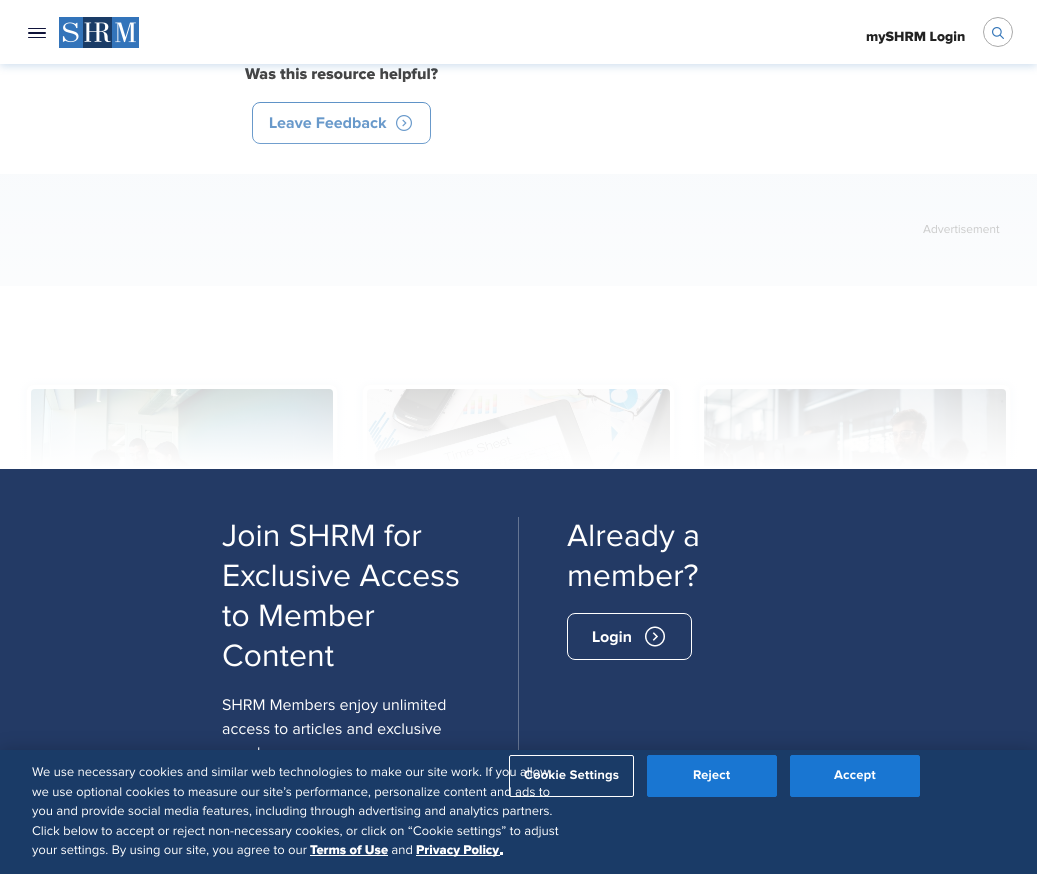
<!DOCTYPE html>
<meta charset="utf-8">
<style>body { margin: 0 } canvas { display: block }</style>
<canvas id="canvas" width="1037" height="874"></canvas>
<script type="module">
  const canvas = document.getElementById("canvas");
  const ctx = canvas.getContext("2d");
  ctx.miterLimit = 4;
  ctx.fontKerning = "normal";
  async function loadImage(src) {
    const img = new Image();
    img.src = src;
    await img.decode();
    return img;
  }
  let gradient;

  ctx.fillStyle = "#ffffff";
  ctx.fillRect(0, 0, 1037, 874);
  ctx.font = "800 16px Proxima Nova";
  ctx.fillStyle = "#222222";
  ctx.fillText("Was this resource helpful?", 245, 79);
  ctx.beginPath();
  ctx.roundRect(252.5, 102.5, 178, 41, 7.5);
  ctx.strokeStyle = "#3375b8";
  ctx.stroke();
  ctx.drawImage(await loadImage("img14.png"), 269, 117, 118, 12);
  ctx.drawImage(await loadImage("img15.png"), 396, 115, 16, 16);
  ctx.fillStyle = "#f5f8fb";
  ctx.fillRect(0, 174, 1037, 112);
  ctx.drawImage(await loadImage("img16.png"), 923, 225, 77, 9);
  ctx.fillStyle = "rgba(51, 117, 184, 0.24)";
  ctx.filter = "blur(4px)";
  ctx.beginPath();
  ctx.roundRect(26, 386, 312, 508, 8);
  ctx.fill();
  ctx.filter = "none";
  ctx.fillStyle = "#ffffff";
  ctx.beginPath();
  ctx.moveTo(34, 384);
  ctx.lineTo(330, 384);
  ctx.bezierCurveTo(334.5, 384, 338, 387.5, 338, 392);
  ctx.lineTo(338, 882);
  ctx.lineTo(26, 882);
  ctx.lineTo(26, 392);
  ctx.bezierCurveTo(26, 387.5, 29.5, 384, 34, 384);
  ctx.closePath();
  ctx.fill();
  ctx.fillStyle = "#f4f4f4";
  ctx.beginPath();
  ctx.moveTo(34, 384);
  ctx.bezierCurveTo(32, 384, 30, 385, 28, 386);
  ctx.lineTo(29, 387);
  ctx.bezierCurveTo(30, 386, 32, 385, 34, 385);
  ctx.lineTo(330, 385);
  ctx.bezierCurveTo(332, 385, 334, 386, 335, 387);
  ctx.lineTo(336, 386);
  ctx.bezierCurveTo(334, 385, 332, 384, 330, 384);
  ctx.closePath();
  ctx.fill();
  ctx.fillStyle = "rgba(217, 217, 217, 0.3)";
  ctx.beginPath();
  ctx.moveTo(338, 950);
  ctx.lineTo(338, 392);
  ctx.bezierCurveTo(338, 390, 337, 388, 336, 386);
  ctx.lineTo(335, 387);
  ctx.bezierCurveTo(336, 388, 337, 390, 337, 392);
  ctx.lineTo(337, 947);
  ctx.closePath();
  ctx.fill();
  ctx.beginPath();
  ctx.moveTo(26, 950);
  ctx.lineTo(27, 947);
  ctx.lineTo(27, 392);
  ctx.bezierCurveTo(27, 390, 28, 388, 29, 387);
  ctx.lineTo(28, 386);
  ctx.bezierCurveTo(27, 388, 26, 390, 26, 392);
  ctx.closePath();
  ctx.fill();
  ctx.drawImage(await loadImage("img17.png"), 31, 389, 302, 77);
  ctx.fillStyle = "rgba(51, 117, 184, 0.24)";
  ctx.filter = "blur(4px)";
  ctx.beginPath();
  ctx.roundRect(362, 386, 313, 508, 8);
  ctx.fill();
  ctx.filter = "none";
  ctx.fillStyle = "#ffffff";
  ctx.beginPath();
  ctx.moveTo(370, 384);
  ctx.lineTo(667, 384);
  ctx.bezierCurveTo(671.5, 384, 675, 387.5, 675, 392);
  ctx.lineTo(675, 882);
  ctx.lineTo(362, 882);
  ctx.lineTo(362, 392);
  ctx.bezierCurveTo(362, 387.5, 365.5, 384, 370, 384);
  ctx.closePath();
  ctx.fill();
  ctx.fillStyle = "#f4f4f4";
  ctx.beginPath();
  ctx.moveTo(370, 384);
  ctx.bezierCurveTo(368, 384, 366, 385, 364, 386);
  ctx.lineTo(365, 387);
  ctx.bezierCurveTo(366, 386, 368, 385, 370, 385);
  ctx.lineTo(667, 385);
  ctx.bezierCurveTo(669, 385, 671, 386, 672, 387);
  ctx.lineTo(672, 386);
  ctx.bezierCurveTo(671, 385, 669, 384, 667, 384);
  ctx.closePath();
  ctx.fill();
  ctx.beginPath();
  ctx.moveTo(675, 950);
  ctx.lineTo(675, 392);
  ctx.bezierCurveTo(675, 390, 674, 388, 672, 386);
  ctx.lineTo(672, 387);
  ctx.bezierCurveTo(673, 388, 674, 390, 674, 392);
  ctx.lineTo(674, 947);
  ctx.closePath();
  ctx.fill();
  ctx.fillStyle = "rgba(217, 217, 217, 0.3)";
  ctx.beginPath();
  ctx.moveTo(362, 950);
  ctx.lineTo(363, 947);
  ctx.lineTo(363, 392);
  ctx.bezierCurveTo(363, 390, 364, 388, 365, 387);
  ctx.lineTo(364, 386);
  ctx.bezierCurveTo(363, 388, 362, 390, 362, 392);
  ctx.closePath();
  ctx.fill();
  ctx.drawImage(await loadImage("img18.png"), 367, 389, 303, 77);
  ctx.fillStyle = "rgba(51, 117, 184, 0.24)";
  ctx.filter = "blur(4px)";
  ctx.beginPath();
  ctx.roundRect(699, 386, 312, 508, 8);
  ctx.fill();
  ctx.filter = "none";
  ctx.fillStyle = "#ffffff";
  ctx.beginPath();
  ctx.moveTo(707, 384);
  ctx.lineTo(1003, 384);
  ctx.bezierCurveTo(1007.5, 384, 1011, 387.5, 1011, 392);
  ctx.lineTo(1011, 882);
  ctx.lineTo(699, 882);
  ctx.lineTo(699, 392);
  ctx.bezierCurveTo(699, 387.5, 702.5, 384, 707, 384);
  ctx.closePath();
  ctx.fill();
  ctx.fillStyle = "#f4f4f4";
  ctx.beginPath();
  ctx.moveTo(707, 384);
  ctx.bezierCurveTo(705, 384, 703, 385, 702, 386);
  ctx.lineTo(702, 387);
  ctx.bezierCurveTo(703, 386, 705, 385, 707, 385);
  ctx.lineTo(1003, 385);
  ctx.bezierCurveTo(1005, 385, 1007, 386, 1008, 387);
  ctx.lineTo(1008, 386);
  ctx.bezierCurveTo(1007, 385, 1005, 384, 1003, 384);
  ctx.closePath();
  ctx.fill();
  ctx.beginPath();
  ctx.moveTo(1011, 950);
  ctx.lineTo(1011, 392);
  ctx.bezierCurveTo(1011, 390, 1010, 388, 1008, 386);
  ctx.lineTo(1008, 387);
  ctx.bezierCurveTo(1009, 388, 1010, 390, 1010, 392);
  ctx.lineTo(1010, 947);
  ctx.closePath();
  ctx.fill();
  ctx.beginPath();
  ctx.moveTo(699, 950);
  ctx.lineTo(700, 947);
  ctx.lineTo(700, 392);
  ctx.bezierCurveTo(700, 390, 701, 388, 702, 387);
  ctx.lineTo(702, 386);
  ctx.bezierCurveTo(700, 388, 699, 390, 699, 392);
  ctx.closePath();
  ctx.fill();
  ctx.drawImage(await loadImage("img19.png"), 704, 389, 302, 77);
  gradient = ctx.createLinearGradient(519, 0, 519, 469);
  gradient.addColorStop(0, "rgba(255, 255, 255, 0)");
  gradient.addColorStop(1, "#ffffff");
  ctx.fillStyle = gradient;
  ctx.fillRect(0, 67, 1037, 402);
  ctx.fillStyle = "rgba(51, 117, 184, 0.24)";
  ctx.filter = "blur(4px)";
  ctx.beginPath();
  ctx.rect(0, 2, 1037, 64);
  ctx.fill();
  ctx.filter = "none";
  ctx.fillStyle = "#ffffff";
  ctx.fillRect(0, 0, 1037, 64);
  ctx.fillStyle = "#0f133a";
  ctx.beginPath();
  ctx.roundRect(28, 28, 18, 1, 0.5);
  ctx.fill();
  ctx.beginPath();
  ctx.roundRect(28, 32, 18, 2, 1);
  ctx.fill();
  ctx.beginPath();
  ctx.roundRect(28, 37, 18, 1, 0.5);
  ctx.fill();
  ctx.drawImage(await loadImage("img1.png"), 59, 17, 80, 31);
  ctx.beginPath();
  ctx.arc(998, 32, 14.5, 0, Math.PI * 2);
  ctx.strokeStyle = "#aaaaaa";
  ctx.stroke();
  ctx.font = "800 14px Proxima Nova";
  ctx.fillStyle = "#222222";
  ctx.fillText("mySHRM Login", 866, 41);
  ctx.drawImage(await loadImage("img2.png"), 992, 27, 12, 12);
  ctx.fillStyle = "#233a65";
  ctx.fillRect(0, 469, 1037, 281);
  ctx.fillStyle = "#657593";
  ctx.fillRect(518, 517, 1, 233);
  ctx.drawImage(await loadImage("img3.png"), 222, 524, 200, 23);
  ctx.drawImage(await loadImage("img4.png"), 224, 564, 235, 23);
  ctx.drawImage(await loadImage("img5.png"), 222, 604, 153, 23);
  ctx.drawImage(await loadImage("img6.png"), 223, 644, 111, 23);
  ctx.drawImage(await loadImage("img7.png"), 222, 699, 224, 15);
  ctx.drawImage(await loadImage("img8.png"), 222, 723, 219, 12);
  ctx.drawImage(await loadImage("img9.png"), 258, 747, 2, 3);
  ctx.drawImage(await loadImage("img10.png"), 567, 524, 131, 29);
  ctx.drawImage(await loadImage("img11.png"), 569, 564, 129, 23);
  ctx.beginPath();
  ctx.roundRect(567.5, 613.5, 124, 46, 7.5);
  ctx.strokeStyle = "#ffffff";
  ctx.stroke();
  ctx.drawImage(await loadImage("img12.png"), 592, 631, 39, 15);
  ctx.drawImage(await loadImage("img13.png"), 645, 626, 20, 21);
  ctx.fillStyle = "rgba(0, 0, 0, 0.2)";
  ctx.filter = "blur(9px)";
  ctx.beginPath();
  ctx.rect(0, 750, 1037, 124);
  ctx.fill();
  ctx.filter = "none";
  ctx.fillStyle = "#1a3b67";
  ctx.fillRect(0, 750, 1037, 124);
  ctx.beginPath();
  ctx.roundRect(509.5, 755.5, 124, 41, 1.5);
  ctx.stroke();
  ctx.drawImage(await loadImage("img20.png"), 524, 770, 95, 12);
  ctx.fillStyle = "#1976d2";
  ctx.beginPath();
  ctx.roundRect(647.5, 755.5, 129, 41, 1.5);
  ctx.fill();
  ctx.strokeStyle = "#1976d2";
  ctx.stroke();
  ctx.drawImage(await loadImage("img21.png"), 693, 770, 37, 12);
  ctx.beginPath();
  ctx.roundRect(790.5, 755.5, 129, 41, 1.5);
  ctx.fill();
  ctx.stroke();
  ctx.drawImage(await loadImage("img22.png"), 834, 770, 42, 12);
  ctx.drawImage(await loadImage("img23.png"), 32, 767, 520, 12);
  ctx.drawImage(await loadImage("img24.png"), 32, 787, 518, 12);
  ctx.drawImage(await loadImage("img25.png"), 32, 806, 520, 12);
  ctx.drawImage(await loadImage("img26.png"), 32, 826, 527, 12);
  ctx.drawImage(await loadImage("img27.png"), 32, 845, 275, 12);
  ctx.font = "800 13px Proxima Nova";
  ctx.fillStyle = "#ffffff";
  ctx.fillText("Terms of Use", 310, 854);
  ctx.fillRect(310, 855, 78, 1);
  ctx.drawImage(await loadImage("img28.png"), 392, 845, 20, 10);
  ctx.fillRect(416, 855, 84, 1);
  ctx.fillText("Privacy Policy", 416, 854);
  ctx.fillStyle = "#fafbfc";
  ctx.fillRect(500, 852, 3, 3);
</script>
